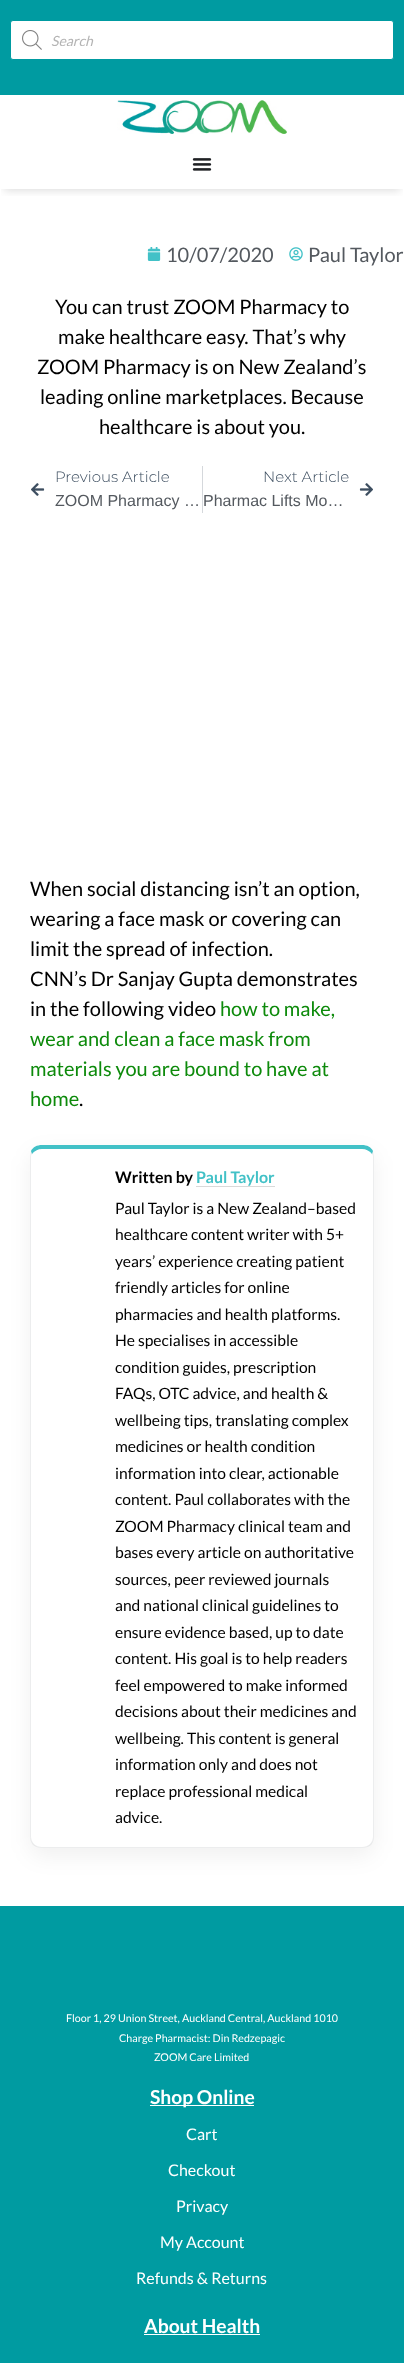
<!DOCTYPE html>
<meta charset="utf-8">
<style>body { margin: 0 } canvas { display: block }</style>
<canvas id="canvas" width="404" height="2363"></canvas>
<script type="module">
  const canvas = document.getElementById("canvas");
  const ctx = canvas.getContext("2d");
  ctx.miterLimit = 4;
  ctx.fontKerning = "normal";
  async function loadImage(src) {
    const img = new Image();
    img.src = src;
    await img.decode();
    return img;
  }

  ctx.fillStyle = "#ffffff";
  ctx.fillRect(0, 0, 404, 2363);
  ctx.fillStyle = "#009ba1";
  ctx.fillRect(0, 0, 404, 95);
  ctx.fillStyle = "#ffffff";
  ctx.beginPath();
  ctx.roundRect(10.5, 20.5, 383, 39, 2.5);
  ctx.fill();
  ctx.strokeStyle = "#009ba1";
  ctx.stroke();
  ctx.drawImage(await loadImage("img1.png"), 22, 30, 20, 20);
  ctx.font = "italic 14px Lato";
  ctx.fillStyle = "#b4b4b4";
  ctx.fillText("Search", 51, 46);
  ctx.save();
  ctx.beginPath();
  ctx.rect(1, 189, 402, 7);
  ctx.clip();
  ctx.fillStyle = "rgba(0, 0, 0, 0.15)";
  ctx.filter = "blur(5px)";
  ctx.beginPath();
  ctx.rect(4, 104, 396, 86);
  ctx.fill();
  ctx.filter = "none";
  ctx.restore();
  ctx.drawImage(await loadImage("img2.png"), 117, 100, 170, 34);
  ctx.drawImage(await loadImage("img3.png"), 192, 158, 20, 13);
  ctx.drawImage(await loadImage("img4.png"), 147, 247, 14, 14);
  ctx.font = "20px Lato";
  ctx.fillStyle = "#54595f";
  ctx.fillText("10/07/2020", 166, 262);
  ctx.drawImage(await loadImage("img5.png"), 289, 247, 14, 14);
  ctx.fillText("Paul Taylor", 308, 262);
  ctx.fillStyle = "#000000";
  ctx.fillText("You can trust ZOOM Pharmacy to", 55, 314);
  ctx.fillText("make healthcare easy. That’s why", 58, 344);
  ctx.fillText("ZOOM Pharmacy is on New Zealand’s", 37, 374);
  ctx.fillText("leading online marketplaces. Because", 40, 404);
  ctx.fillText("healthcare is about you.", 99, 434);
  ctx.drawImage(await loadImage("img6.png"), 31, 483, 14, 13);
  ctx.font = "300 15px Montserrat";
  ctx.fillStyle = "#3d4e60";
  ctx.fillText("Previous Article", 55, 482);
  ctx.font = "16px Liberation Sans";
  ctx.fillStyle = "#54595f";
  ctx.fillText("ZOOM Pharmacy …", 55, 506);
  ctx.fillStyle = "#d5d8dc";
  ctx.fillRect(202, 466, 1, 47);
  ctx.font = "300 15px Montserrat";
  ctx.fillStyle = "#3d4e60";
  ctx.fillText("Next Article", 263, 482);
  ctx.font = "16px Liberation Sans";
  ctx.fillStyle = "#54595f";
  ctx.fillText("Pharmac Lifts Mo…", 203, 506);
  ctx.drawImage(await loadImage("img7.png"), 359, 483, 14, 13);
  ctx.font = "20px Lato";
  ctx.fillStyle = "#000000";
  ctx.fillText("When social distancing isn’t an option,", 30, 896);
  ctx.fillText("wearing a face mask or covering can", 30, 926);
  ctx.fillText("limit the spread of infection.", 30, 956);
  ctx.fillText("CNN’s Dr Sanjay Gupta demonstrates", 30, 986);
  ctx.fillText("in the following video", 30, 1016);
  ctx.fillStyle = "#0d8a0b";
  ctx.fillText("how to make,", 220, 1016);
  ctx.fillText("wear and clean a face mask from", 30, 1046);
  ctx.fillText("materials you are bound to have at", 30, 1076);
  ctx.fillText("home", 30, 1106);
  ctx.fillStyle = "#000000";
  ctx.fillText(".", 79, 1106);
  ctx.fillStyle = "rgba(0, 0, 0, 0.06)";
  ctx.filter = "blur(11px)";
  ctx.beginPath();
  ctx.roundRect(30, 1153, 344, 703, 12);
  ctx.fill();
  ctx.filter = "none";
  ctx.fillStyle = "#ffffff";
  ctx.beginPath();
  ctx.roundRect(30, 1145, 344, 703, 12);
  ctx.fill();
  ctx.fillStyle = "#42c1c7";
  ctx.beginPath();
  ctx.moveTo(42, 1145);
  ctx.bezierCurveTo(37, 1145, 33, 1147, 31, 1151);
  ctx.lineTo(32, 1154);
  ctx.bezierCurveTo(34, 1151, 38, 1149, 42, 1149);
  ctx.lineTo(362, 1149);
  ctx.bezierCurveTo(366, 1149, 370, 1151, 372, 1154);
  ctx.lineTo(373, 1151);
  ctx.bezierCurveTo(371, 1147, 367, 1145, 362, 1145);
  ctx.closePath();
  ctx.fill();
  ctx.fillStyle = "rgba(17, 24, 39, 0.08)";
  ctx.beginPath();
  ctx.moveTo(374, 1836);
  ctx.lineTo(374, 1157);
  ctx.bezierCurveTo(374, 1155, 373, 1153, 373, 1151);
  ctx.lineTo(372, 1154);
  ctx.bezierCurveTo(373, 1155, 373, 1156, 373, 1157);
  ctx.lineTo(373, 1836);
  ctx.bezierCurveTo(373, 1839, 372, 1842, 370, 1844);
  ctx.lineTo(371, 1845);
  ctx.bezierCurveTo(373, 1842, 374, 1840, 374, 1836);
  ctx.closePath();
  ctx.fill();
  ctx.beginPath();
  ctx.moveTo(42, 1848);
  ctx.lineTo(362, 1848);
  ctx.bezierCurveTo(366, 1848, 368, 1847, 371, 1845);
  ctx.lineTo(370, 1844);
  ctx.bezierCurveTo(368, 1846, 365, 1847, 362, 1847);
  ctx.lineTo(42, 1847);
  ctx.bezierCurveTo(39, 1847, 36, 1846, 34, 1844);
  ctx.lineTo(33, 1845);
  ctx.bezierCurveTo(36, 1847, 38, 1848, 42, 1848);
  ctx.closePath();
  ctx.fill();
  ctx.beginPath();
  ctx.moveTo(30, 1157);
  ctx.lineTo(30, 1836);
  ctx.bezierCurveTo(30, 1840, 31, 1842, 33, 1845);
  ctx.lineTo(34, 1844);
  ctx.bezierCurveTo(32, 1842, 31, 1839, 31, 1836);
  ctx.lineTo(31, 1157);
  ctx.bezierCurveTo(31, 1156, 31, 1155, 32, 1154);
  ctx.lineTo(31, 1151);
  ctx.bezierCurveTo(31, 1153, 30, 1155, 30, 1157);
  ctx.closePath();
  ctx.fill();
  ctx.font = "bold 16px Lato";
  ctx.fillStyle = "#000000";
  ctx.fillText("Written by", 115, 1183);
  ctx.fillStyle = "#42c1c7";
  ctx.fillText("Paul Taylor", 196, 1183);
  ctx.fillStyle = "#d9d9d9";
  ctx.fillRect(196, 1186, 79, 1);
  ctx.font = "15.6px Lato";
  ctx.fillStyle = "#000000";
  ctx.fillText("Paul Taylor is a New Zealand–based", 115, 1214);
  ctx.fillText("healthcare content writer with 5+", 115, 1240);
  ctx.fillText("years’ experience creating patient", 115, 1267);
  ctx.fillText("friendly articles for online", 115, 1293);
  ctx.fillText("pharmacies and health platforms.", 115, 1320);
  ctx.fillText("He specialises in accessible", 115, 1346);
  ctx.fillText("condition guides, prescription", 115, 1373);
  ctx.fillText("FAQs, OTC advice, and health &", 115, 1399);
  ctx.fillText("wellbeing tips, translating complex", 115, 1426);
  ctx.fillText("medicines or health condition", 115, 1452);
  ctx.fillText("information into clear, actionable", 115, 1479);
  ctx.fillText("content. Paul collaborates with the", 115, 1505);
  ctx.fillText("ZOOM Pharmacy clinical team and", 115, 1532);
  ctx.fillText("bases every article on authoritative", 115, 1558);
  ctx.fillText("sources, peer reviewed journals", 115, 1585);
  ctx.fillText("and national clinical guidelines to", 115, 1611);
  ctx.fillText("ensure evidence based, up to date", 115, 1638);
  ctx.fillText("content. His goal is to help readers", 115, 1664);
  ctx.fillText("feel empowered to make informed", 115, 1691);
  ctx.fillText("decisions about their medicines and", 115, 1717);
  ctx.fillText("wellbeing. This content is general", 115, 1744);
  ctx.fillText("information only and does not", 115, 1770);
  ctx.fillText("replace professional medical", 115, 1797);
  ctx.fillText("advice.", 115, 1823);
  ctx.fillStyle = "#009ba1";
  ctx.fillRect(0, 1906, 404, 457);
  ctx.font = "10.7px Lato";
  ctx.fillStyle = "#ffffff";
  ctx.fillText("Floor 1, 29 Union Street, Auckland Central, Auckland 1010", 66, 2022);
  ctx.fillText("Charge Pharmacist: Din Redzepagic", 119, 2042);
  ctx.fillText("ZOOM Care Limited", 154, 2061);
  ctx.fillRect(150, 2105, 104, 1);
  ctx.font = "bold 19.25px Lato";
  ctx.fillText("Shop Online", 150, 2104);
  ctx.font = "16px Lato";
  ctx.fillText("Cart", 186, 2140);
  ctx.fillText("Checkout", 168, 2176);
  ctx.fillText("Privacy", 176, 2212);
  ctx.fillText("My Account", 160, 2248);
  ctx.fillText("Refunds & Returns", 136, 2284);
  ctx.font = "bold 19.25px Lato";
  ctx.fillText("About Health", 144, 2333);
  ctx.fillRect(144, 2334, 116, 1);
</script>
